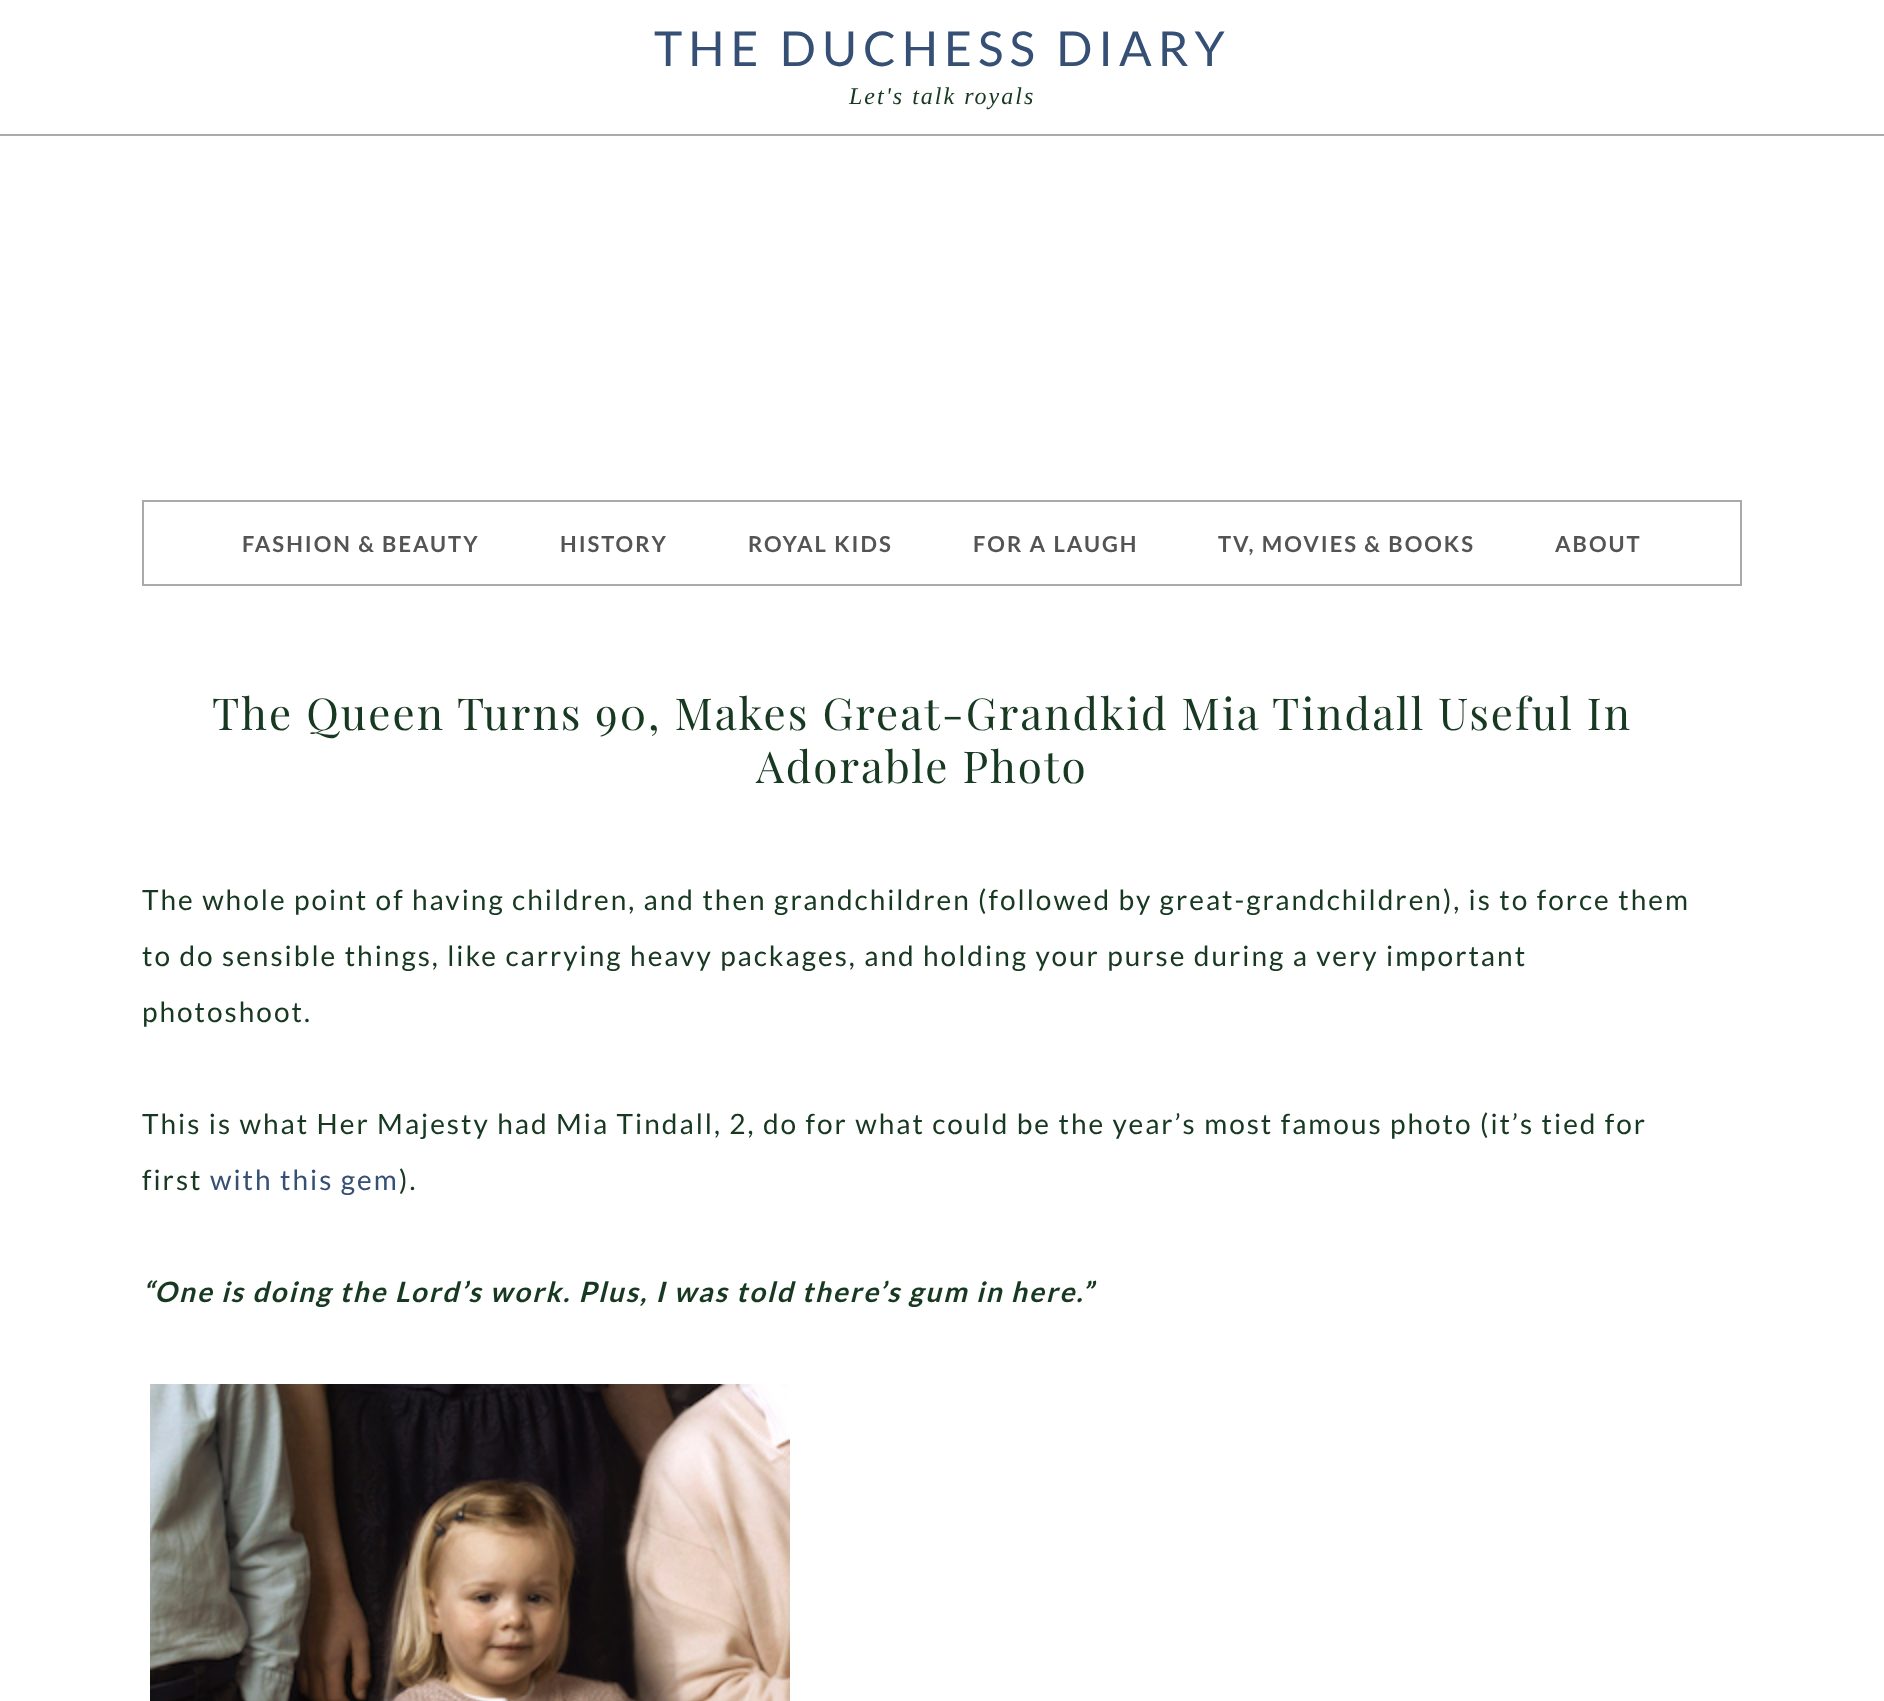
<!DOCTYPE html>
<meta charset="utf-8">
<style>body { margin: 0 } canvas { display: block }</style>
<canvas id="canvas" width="1884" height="1701"></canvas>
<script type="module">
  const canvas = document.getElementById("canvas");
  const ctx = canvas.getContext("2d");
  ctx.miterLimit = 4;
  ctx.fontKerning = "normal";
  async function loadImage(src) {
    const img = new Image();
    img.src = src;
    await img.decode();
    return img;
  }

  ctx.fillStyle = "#ffffff";
  ctx.fillRect(0, 0, 1884, 1701);
  ctx.fillStyle = "#aba9a9";
  ctx.fillRect(0, 134, 1884, 2);
  ctx.letterSpacing = "6px";
  ctx.font = "48px Lato";
  ctx.fillStyle = "#354f75";
  ctx.fillText("THE DUCHESS DIARY", 654, 66);
  ctx.letterSpacing = "2px";
  ctx.font = "italic 24px Liberation Serif";
  ctx.fillStyle = "#173821";
  ctx.fillText("Let's talk royals", 849, 104);
  ctx.strokeStyle = "#aba9a9";
  ctx.lineWidth = 2;
  ctx.strokeRect(143, 501, 1598, 84);
  ctx.font = "bold 22px Lato";
  ctx.fillStyle = "#545454";
  ctx.fillText("FASHION & BEAUTY", 242, 552);
  ctx.fillText("HISTORY", 560, 552);
  ctx.fillText("ROYAL KIDS", 748, 552);
  ctx.fillText("FOR A LAUGH", 973, 552);
  ctx.fillText("TV, MOVIES & BOOKS", 1218, 552);
  ctx.fillText("ABOUT", 1555, 552);
  ctx.font = "44px Playfair Display";
  ctx.fillStyle = "#173821";
  ctx.fillText("The Queen Turns 90, Makes Great-Grandkid Mia Tindall Useful In", 212, 730);
  ctx.fillText("Adorable Photo", 756, 783);
  ctx.font = "28px Lato";
  ctx.fillText("The whole point of having children, and then grandchildren (followed by great-grandchildren), is to force them", 142, 910);
  ctx.fillText("to do sensible things, like carrying heavy packages, and holding your purse during a very important", 142, 966);
  ctx.fillText("photoshoot.", 142, 1022);
  ctx.fillText("This is what Her Majesty had Mia Tindall, 2, do for what could be the year’s most famous photo (it’s tied for", 142, 1134);
  ctx.fillText("first", 142, 1190);
  ctx.fillStyle = "#354f75";
  ctx.fillText("with this gem", 210, 1190);
  ctx.fillStyle = "#173821";
  ctx.fillText(").", 399, 1190);
  ctx.font = "italic bold 28px Lato";
  ctx.fillText("“One is doing the Lord’s work. Plus, I was told there’s gum in here.”", 142, 1302);
  ctx.drawImage(await loadImage("img1.png"), 150, 1384, 640, 317);
</script>
